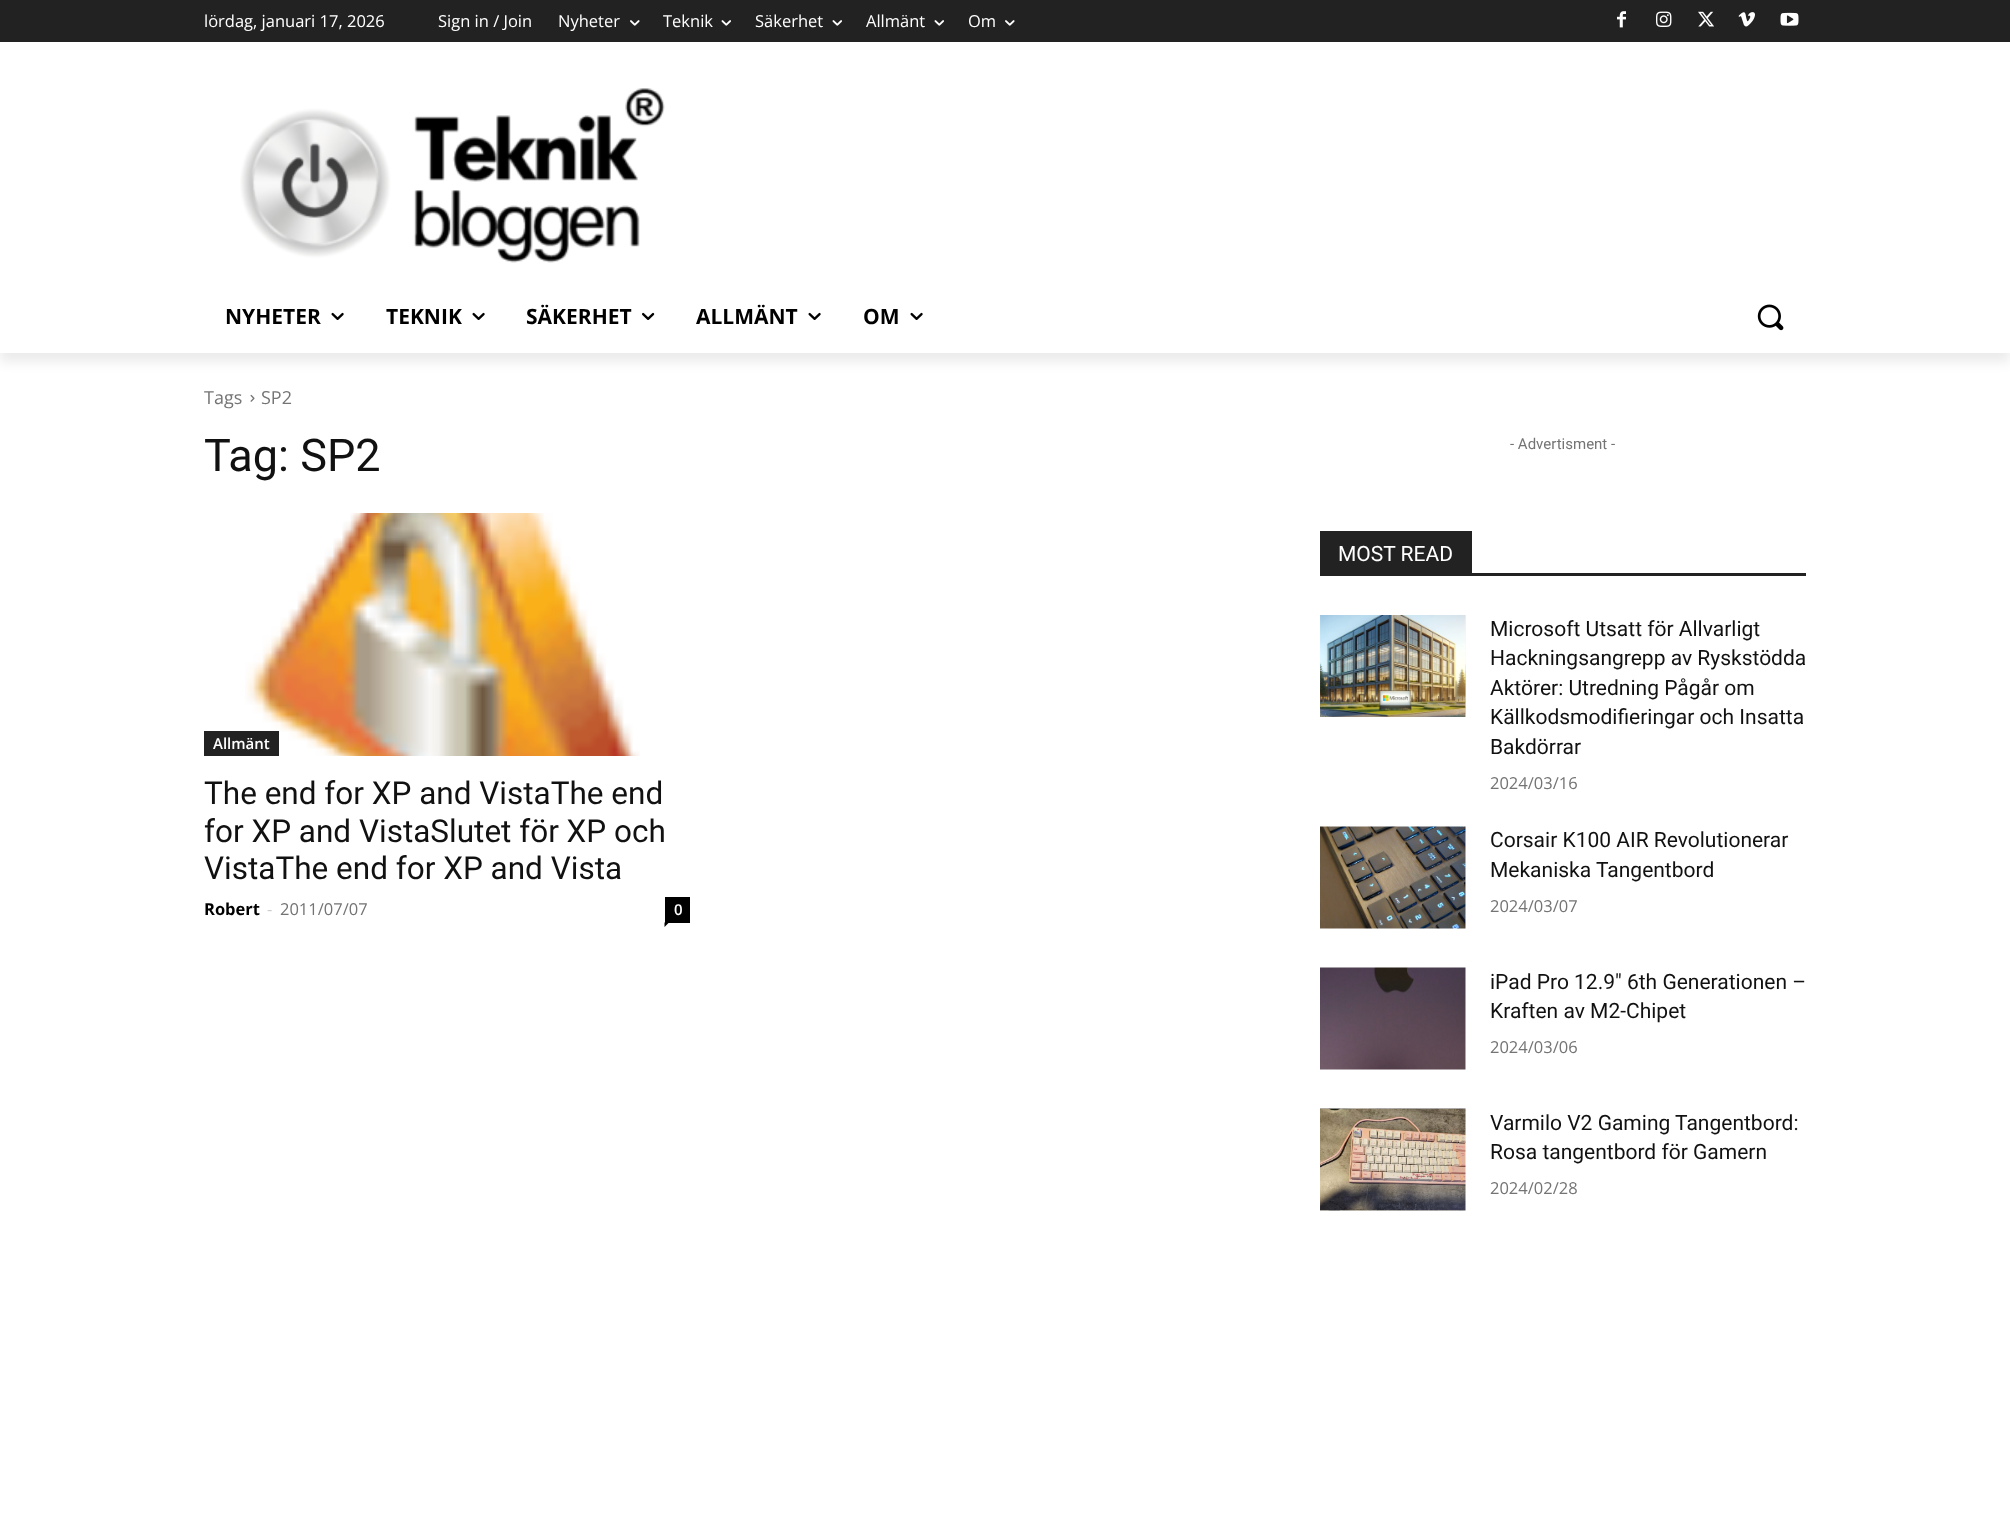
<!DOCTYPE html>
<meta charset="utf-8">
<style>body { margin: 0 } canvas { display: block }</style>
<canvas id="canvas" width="2010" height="1515"></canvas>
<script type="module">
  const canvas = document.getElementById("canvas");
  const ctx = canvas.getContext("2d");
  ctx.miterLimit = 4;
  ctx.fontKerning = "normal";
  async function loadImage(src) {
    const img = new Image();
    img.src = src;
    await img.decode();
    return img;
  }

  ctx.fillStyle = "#ffffff";
  ctx.fillRect(0, 0, 2010, 1515);
  ctx.fillStyle = "#222222";
  ctx.fillRect(0, 0, 2010, 42);
  ctx.drawImage(await loadImage("img3.png"), 1617, 11, 9, 17);
  ctx.drawImage(await loadImage("img4.png"), 1656, 11, 16, 16);
  ctx.drawImage(await loadImage("img5.png"), 1698, 11, 16, 16);
  ctx.drawImage(await loadImage("img6.png"), 1738, 12, 17, 15);
  ctx.drawImage(await loadImage("img7.png"), 1780, 12, 19, 14);
  ctx.drawImage(await loadImage("img8.png"), 240, 88, 425, 175);
  ctx.save();
  ctx.beginPath();
  ctx.moveTo(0, 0);
  ctx.lineTo(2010, 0);
  ctx.lineTo(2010, 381);
  ctx.lineTo(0, 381);
  ctx.closePath();
  ctx.moveTo(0, 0);
  ctx.lineTo(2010, 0);
  ctx.lineTo(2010, 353);
  ctx.lineTo(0, 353);
  ctx.closePath();
  ctx.clip("evenodd");
  ctx.fillStyle = "rgba(0, 0, 0, 0.08)";
  ctx.filter = "blur(6px)";
  ctx.beginPath();
  ctx.rect(0, 9, 2010, 353);
  ctx.fill();
  ctx.filter = "none";
  ctx.restore();
  ctx.font = "16.5px Open Sans";
  ctx.fillStyle = "#ffffff";
  ctx.fillText("lördag, januari 17, 2026", 204, 27);
  ctx.fillText("Sign in / Join", 438, 27);
  ctx.fillText("Nyheter", 558, 27);
  ctx.drawImage(await loadImage("img1.png"), 630, 20, 10, 6);
  ctx.fillText("Teknik", 663, 27);
  ctx.drawImage(await loadImage("img2.png"), 721, 20, 10, 6);
  ctx.fillText("Säkerhet", 755, 27);
  ctx.drawImage(await loadImage("img2.png"), 832, 20, 10, 6);
  ctx.fillText("Allmänt", 866, 27);
  ctx.drawImage(await loadImage("img2.png"), 934, 20, 10, 6);
  ctx.fillText("Om", 968, 27);
  ctx.drawImage(await loadImage("img1.png"), 1005, 20, 10, 6);
  ctx.font = "bold 21px Open Sans";
  ctx.fillStyle = "#000000";
  ctx.fillText("NYHETER", 225, 324);
  ctx.drawImage(await loadImage("img9.png"), 331, 312, 13, 8);
  ctx.fillText("TEKNIK", 386, 324);
  ctx.drawImage(await loadImage("img9.png"), 472, 312, 13, 8);
  ctx.fillText("SÄKERHET", 526, 324);
  ctx.drawImage(await loadImage("img10.png"), 642, 312, 13, 8);
  ctx.fillText("ALLMÄNT", 696, 324);
  ctx.drawImage(await loadImage("img9.png"), 808, 312, 13, 8);
  ctx.fillText("OM", 863, 324);
  ctx.drawImage(await loadImage("img9.png"), 910, 312, 13, 8);
  ctx.drawImage(await loadImage("img11.png"), 1757, 304, 27, 27);
  ctx.font = "18px Open Sans";
  ctx.fillStyle = "#747474";
  ctx.fillText("Tags", 204, 404);
  ctx.drawImage(await loadImage("img12.png"), 250, 394, 5, 8);
  ctx.fillText("SP2", 261, 404);
  ctx.font = "45px Roboto";
  ctx.fillStyle = "#111111";
  ctx.fillText("Tag: SP2", 204, 471);
  ctx.drawImage(await loadImage("img13.png"), 245, 513, 395, 243);
  ctx.fillStyle = "#222222";
  ctx.fillRect(204, 731, 75, 25);
  ctx.font = "600 15px Open Sans";
  ctx.fillStyle = "#ffffff";
  ctx.fillText("Allmänt", 213, 749);
  ctx.font = "31.5px Roboto";
  ctx.fillStyle = "#111111";
  ctx.fillText("The end for XP and VistaThe end", 204, 804);
  ctx.fillText("for XP and VistaSlutet för XP och", 204, 842);
  ctx.fillText("VistaThe end for XP and Vista", 204, 879);
  ctx.font = "bold 16.5px Open Sans";
  ctx.fillStyle = "#000000";
  ctx.fillText("Robert", 204, 915);
  ctx.font = "16.5px Open Sans";
  ctx.fillStyle = "#cccccc";
  ctx.fillText("-", 267, 915);
  ctx.fillStyle = "#747474";
  ctx.fillText("2011/07/07", 280, 915);
  ctx.fillStyle = "#000000";
  ctx.fillRect(665, 897, 25, 26);
  ctx.font = "600 15px Open Sans";
  ctx.fillStyle = "#ffffff";
  ctx.fillText("0", 674, 915);
  ctx.fillStyle = "#000000";
  ctx.beginPath();
  ctx.moveTo(664.5, 922.5);
  ctx.lineTo(669, 922.5);
  ctx.lineTo(664.5, 927);
  ctx.closePath();
  ctx.fill();
  ctx.font = "15px Roboto";
  ctx.fillStyle = "#747474";
  ctx.fillText("- Advertisment -", 1510, 449);
  ctx.fillStyle = "#222222";
  ctx.fillRect(1320, 573, 486, 3);
  ctx.fillRect(1320, 531, 152, 42);
  ctx.font = "21px Roboto";
  ctx.fillStyle = "#ffffff";
  ctx.fillText("MOST READ", 1338, 561);
  ctx.drawImage(await loadImage("img14.png"), 1320, 615, 146, 102);
  ctx.fillStyle = "#111111";
  ctx.fillText("Microsoft Utsatt för Allvarligt", 1490, 636);
  ctx.fillText("Hackningsangrepp av Ryskstödda", 1490, 665);
  ctx.fillText("Aktörer: Utredning Pågår om", 1490, 695);
  ctx.fillText("Källkodsmodifieringar och Insatta", 1490, 724);
  ctx.fillText("Bakdörrar", 1490, 754);
  ctx.font = "16.5px Open Sans";
  ctx.fillStyle = "#747474";
  ctx.fillText("2024/03/16", 1490, 789);
  ctx.drawImage(await loadImage("img15.png"), 1320, 826, 146, 103);
  ctx.font = "21px Roboto";
  ctx.fillStyle = "#111111";
  ctx.fillText("Corsair K100 AIR Revolutionerar", 1490, 847);
  ctx.fillText("Mekaniska Tangentbord", 1490, 877);
  ctx.font = "16.5px Open Sans";
  ctx.fillStyle = "#747474";
  ctx.fillText("2024/03/07", 1490, 912);
  ctx.drawImage(await loadImage("img16.png"), 1320, 967, 146, 103);
  ctx.font = "21px Roboto";
  ctx.fillStyle = "#111111";
  ctx.fillText("iPad Pro 12.9″ 6th Generationen –", 1490, 989);
  ctx.fillText("Kraften av M2-Chipet", 1490, 1018);
  ctx.font = "16.5px Open Sans";
  ctx.fillStyle = "#747474";
  ctx.fillText("2024/03/06", 1490, 1053);
  ctx.drawImage(await loadImage("img17.png"), 1320, 1108, 146, 103);
  ctx.font = "21px Roboto";
  ctx.fillStyle = "#111111";
  ctx.fillText("Varmilo V2 Gaming Tangentbord:", 1490, 1130);
  ctx.fillText("Rosa tangentbord för Gamern", 1490, 1159);
  ctx.font = "16.5px Open Sans";
  ctx.fillStyle = "#747474";
  ctx.fillText("2024/02/28", 1490, 1194);
</script>
